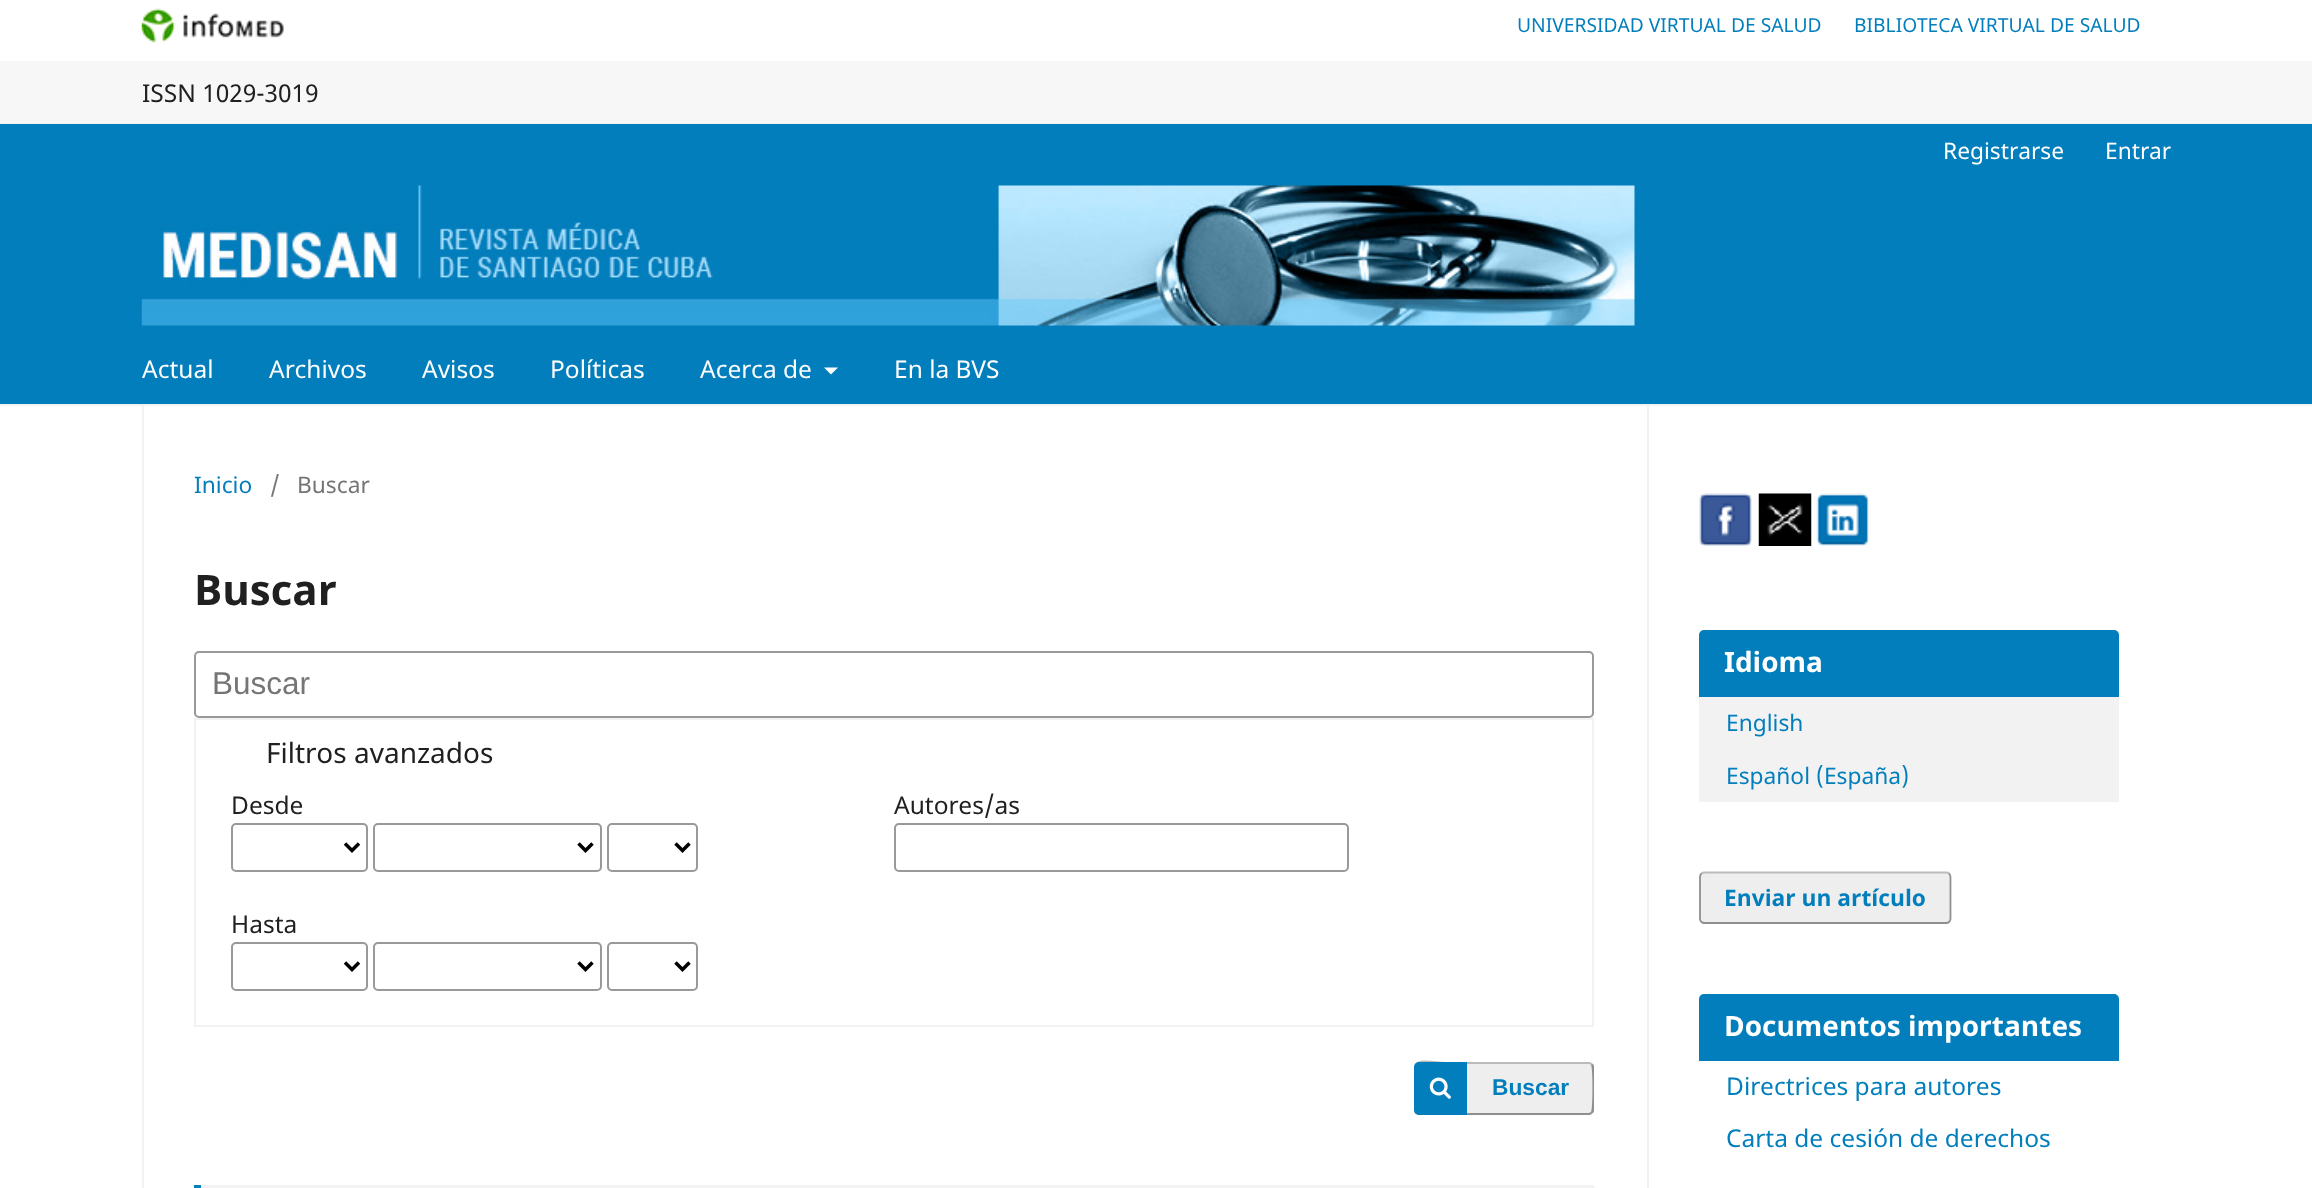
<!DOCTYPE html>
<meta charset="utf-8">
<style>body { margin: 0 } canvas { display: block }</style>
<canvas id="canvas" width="2312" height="1188"></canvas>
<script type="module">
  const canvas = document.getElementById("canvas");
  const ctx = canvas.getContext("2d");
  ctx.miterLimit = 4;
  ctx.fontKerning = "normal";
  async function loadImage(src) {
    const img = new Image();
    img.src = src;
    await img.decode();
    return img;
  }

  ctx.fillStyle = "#ffffff";
  ctx.fillRect(0, 0, 2312, 1188);
  ctx.drawImage(await loadImage("img1.png"), 141, 8, 143, 35);
  ctx.font = "19.25px Noto Sans";
  ctx.fillStyle = "#027ebc";
  ctx.fillText("UNIVERSIDAD VIRTUAL DE SALUD", 1517, 32);
  ctx.fillText("BIBLIOTECA VIRTUAL DE SALUD", 1854, 32);
  ctx.fillStyle = "#f7f7f7";
  ctx.fillRect(0, 61, 2312, 62);
  ctx.fillStyle = "#f2f2f2";
  ctx.fillRect(0, 123, 2312, 1);
  ctx.font = "24.5px Noto Sans";
  ctx.fillStyle = "#202020";
  ctx.fillText("ISSN 1029-3019", 142, 102);
  ctx.fillStyle = "#027ebc";
  ctx.fillRect(0, 124, 2312, 280);
  ctx.fillStyle = "#f2f2f2";
  ctx.fillRect(0, 404, 2312, 2);
  ctx.font = "22.75px Noto Sans";
  ctx.fillStyle = "#ffffff";
  ctx.fillText("Registrarse", 1943, 159);
  ctx.fillText("Entrar", 2105, 159);
  ctx.font = "24.5px Noto Sans";
  ctx.fillText("Actual", 142, 378);
  ctx.fillText("Archivos", 269, 378);
  ctx.fillText("Avisos", 422, 378);
  ctx.fillText("Políticas", 550, 378);
  ctx.fillText("Acerca de", 700, 378);
  ctx.beginPath();
  ctx.moveTo(824, 367.5);
  ctx.lineTo(838, 367.5);
  ctx.lineTo(831, 374.5);
  ctx.closePath();
  ctx.fill();
  ctx.fillText("En la BVS", 894, 378);
  ctx.drawImage(await loadImage("img2.png"), 141, 185, 1494, 141);
  ctx.fillStyle = "#f2f2f2";
  ctx.fillRect(142, 406, 2, 782);
  ctx.font = "22.75px Noto Sans";
  ctx.fillStyle = "#027ebc";
  ctx.fillText("Inicio", 194, 493);
  ctx.fillStyle = "#757575";
  ctx.fillText("/", 270, 493);
  ctx.fillText("Buscar", 297, 493);
  ctx.font = "bold 42px Noto Sans";
  ctx.fillStyle = "#202020";
  ctx.fillText("Buscar", 194, 605);
  ctx.beginPath();
  ctx.roundRect(195, 652, 1398, 65, 4);
  ctx.strokeStyle = "#999999";
  ctx.lineWidth = 2;
  ctx.stroke();
  ctx.font = "31.5px Liberation Sans";
  ctx.fillStyle = "#757575";
  ctx.fillText("Buscar", 212, 694);
  ctx.strokeStyle = "#f2f2f2";
  ctx.strokeRect(195, 719, 1398, 307);
  ctx.font = "28px Noto Sans";
  ctx.fillStyle = "#202020";
  ctx.fillText("Filtros avanzados", 266, 763);
  ctx.font = "24.5px Noto Sans";
  ctx.fillText("Desde", 231, 814);
  ctx.beginPath();
  ctx.roundRect(232, 824, 135, 47, 4);
  ctx.strokeStyle = "#999999";
  ctx.stroke();
  ctx.beginPath();
  ctx.moveTo(345, 843.5);
  ctx.lineTo(352, 850.5);
  ctx.lineTo(359, 843.5);
  ctx.strokeStyle = "#000000";
  ctx.lineWidth = 3.5;
  ctx.stroke();
  ctx.beginPath();
  ctx.roundRect(374, 824, 227, 47, 4);
  ctx.strokeStyle = "#999999";
  ctx.lineWidth = 2;
  ctx.stroke();
  ctx.beginPath();
  ctx.moveTo(578.5, 843.5);
  ctx.lineTo(585.5, 850.5);
  ctx.lineTo(592.5, 843.5);
  ctx.strokeStyle = "#000000";
  ctx.lineWidth = 3.5;
  ctx.stroke();
  ctx.beginPath();
  ctx.roundRect(608, 824, 89, 47, 4);
  ctx.strokeStyle = "#999999";
  ctx.lineWidth = 2;
  ctx.stroke();
  ctx.beginPath();
  ctx.moveTo(675.5, 843.5);
  ctx.lineTo(682.5, 850.5);
  ctx.lineTo(689.5, 843.5);
  ctx.strokeStyle = "#000000";
  ctx.lineWidth = 3.5;
  ctx.stroke();
  ctx.fillText("Hasta", 231, 933);
  ctx.beginPath();
  ctx.roundRect(232, 943, 135, 47, 4);
  ctx.strokeStyle = "#999999";
  ctx.lineWidth = 2;
  ctx.stroke();
  ctx.beginPath();
  ctx.moveTo(345, 962.5);
  ctx.lineTo(352, 969.5);
  ctx.lineTo(359, 962.5);
  ctx.strokeStyle = "#000000";
  ctx.lineWidth = 3.5;
  ctx.stroke();
  ctx.beginPath();
  ctx.roundRect(374, 943, 227, 47, 4);
  ctx.strokeStyle = "#999999";
  ctx.lineWidth = 2;
  ctx.stroke();
  ctx.beginPath();
  ctx.moveTo(578.5, 962.5);
  ctx.lineTo(585.5, 969.5);
  ctx.lineTo(592.5, 962.5);
  ctx.strokeStyle = "#000000";
  ctx.lineWidth = 3.5;
  ctx.stroke();
  ctx.beginPath();
  ctx.roundRect(608, 943, 89, 47, 4);
  ctx.strokeStyle = "#999999";
  ctx.lineWidth = 2;
  ctx.stroke();
  ctx.beginPath();
  ctx.moveTo(675.5, 962.5);
  ctx.lineTo(682.5, 969.5);
  ctx.lineTo(689.5, 962.5);
  ctx.strokeStyle = "#000000";
  ctx.lineWidth = 3.5;
  ctx.stroke();
  ctx.fillText("Autores/as", 894, 814);
  ctx.beginPath();
  ctx.roundRect(895, 824, 453, 47, 4);
  ctx.strokeStyle = "#999999";
  ctx.lineWidth = 2;
  ctx.stroke();
  ctx.fillStyle = "#eeeeee";
  ctx.beginPath();
  ctx.roundRect(1414, 1062, 180, 53, 5);
  ctx.fill();
  ctx.fillStyle = "#bbbbbb";
  ctx.beginPath();
  ctx.moveTo(1419, 1064);
  ctx.bezierCurveTo(1416, 1064, 1414, 1066, 1414, 1068);
  ctx.bezierCurveTo(1414, 1056, 1435, 1062, 1446, 1062);
  ctx.lineTo(1590, 1062);
  ctx.lineTo(1593, 1064);
  ctx.lineTo(1591, 1065);
  ctx.lineTo(1589, 1064);
  ctx.closePath();
  ctx.fill();
  ctx.fillStyle = "rgba(0, 0, 0, 0.4)";
  ctx.beginPath();
  ctx.moveTo(1591, 1112);
  ctx.bezierCurveTo(1593, 1110, 1593, 1068, 1591, 1065);
  ctx.lineTo(1593, 1064);
  ctx.bezierCurveTo(1594, 1065, 1594, 1066, 1594, 1068);
  ctx.lineTo(1594, 1110);
  ctx.bezierCurveTo(1594, 1111, 1594, 1112, 1593, 1113);
  ctx.closePath();
  ctx.fill();
  ctx.beginPath();
  ctx.moveTo(1418, 1115);
  ctx.bezierCurveTo(1415, 1114, 1414, 1112, 1414, 1110);
  ctx.bezierCurveTo(1414, 1115, 1433, 1113, 1447, 1113);
  ctx.lineTo(1589, 1113);
  ctx.lineTo(1591, 1112);
  ctx.lineTo(1593, 1113);
  ctx.lineTo(1590, 1115);
  ctx.closePath();
  ctx.fill();
  ctx.fillStyle = "#027ebc";
  ctx.beginPath();
  ctx.roundRect(1414, 1062, 53, 53, [5, 0, 0, 5]);
  ctx.fill();
  ctx.drawImage(await loadImage("img3.png"), 1429, 1077, 22, 22);
  ctx.font = "bold 22.75px Liberation Sans";
  ctx.fillText("Buscar", 1492, 1095);
  ctx.fillStyle = "#f2f2f2";
  ctx.fillRect(194, 1185, 1400, 3);
  ctx.fillStyle = "#027ebc";
  ctx.fillRect(194, 1185, 7, 3);
  ctx.fillStyle = "#f2f2f2";
  ctx.fillRect(1647, 406, 2, 782);
  ctx.drawImage(await loadImage("img4.png"), 1699, 493, 53, 53);
  ctx.drawImage(await loadImage("img5.png"), 1758, 493, 54, 53);
  ctx.drawImage(await loadImage("img6.png"), 1816, 493, 53, 53);
  ctx.fillStyle = "#027ebc";
  ctx.beginPath();
  ctx.roundRect(1699, 630, 420, 67, [5, 5, 0, 0]);
  ctx.fill();
  ctx.font = "bold 28px Noto Sans";
  ctx.fillStyle = "#ffffff";
  ctx.fillText("Idioma", 1724, 672);
  ctx.fillStyle = "#f2f2f2";
  ctx.fillRect(1699, 697, 420, 105);
  ctx.font = "22.75px Noto Sans";
  ctx.fillStyle = "#027ebc";
  ctx.fillText("English", 1726, 731);
  ctx.fillText("Español (España)", 1726, 784);
  ctx.fillStyle = "#eeeeee";
  ctx.beginPath();
  ctx.roundRect(1699, 872, 252, 52, 5);
  ctx.fill();
  ctx.beginPath();
  ctx.moveTo(1701.5, 873.5);
  ctx.bezierCurveTo(1702, 873, 1703.5, 872.5, 1704.5, 872.5);
  ctx.lineTo(1946, 872.5);
  ctx.bezierCurveTo(1947, 872.5, 1948.5, 873, 1949, 873.5);
  ctx.strokeStyle = "#bbbbbb";
  ctx.lineWidth = 1.8;
  ctx.stroke();
  ctx.beginPath();
  ctx.moveTo(1949, 873.5);
  ctx.bezierCurveTo(1950, 874.5, 1950.5, 875.5, 1950.5, 877);
  ctx.lineTo(1950.5, 919);
  ctx.bezierCurveTo(1950.5, 920, 1950, 921, 1949, 922);
  ctx.bezierCurveTo(1948.5, 922.5, 1947, 923, 1946, 923);
  ctx.lineTo(1704.5, 923);
  ctx.bezierCurveTo(1703.5, 923, 1702, 922.5, 1701.5, 922);
  ctx.bezierCurveTo(1700.5, 921, 1700, 920, 1700, 919);
  ctx.lineTo(1700, 877);
  ctx.bezierCurveTo(1700, 875.5, 1700.5, 874.5, 1701.5, 873.5);
  ctx.strokeStyle = "rgba(0, 0, 0, 0.4)";
  ctx.stroke();
  ctx.font = "bold 22.75px Noto Sans";
  ctx.fillStyle = "#027ebc";
  ctx.fillText("Enviar un artículo", 1724, 906);
  ctx.beginPath();
  ctx.roundRect(1699, 994, 420, 67, [5, 5, 0, 0]);
  ctx.fill();
  ctx.font = "bold 28px Noto Sans";
  ctx.fillStyle = "#ffffff";
  ctx.fillText("Documentos importantes", 1724, 1036);
  ctx.font = "24.5px Noto Sans";
  ctx.fillStyle = "#027ebc";
  ctx.fillText("Directrices para autores", 1726, 1095);
  ctx.fillText("Carta de cesión de derechos", 1726, 1147);
</script>
